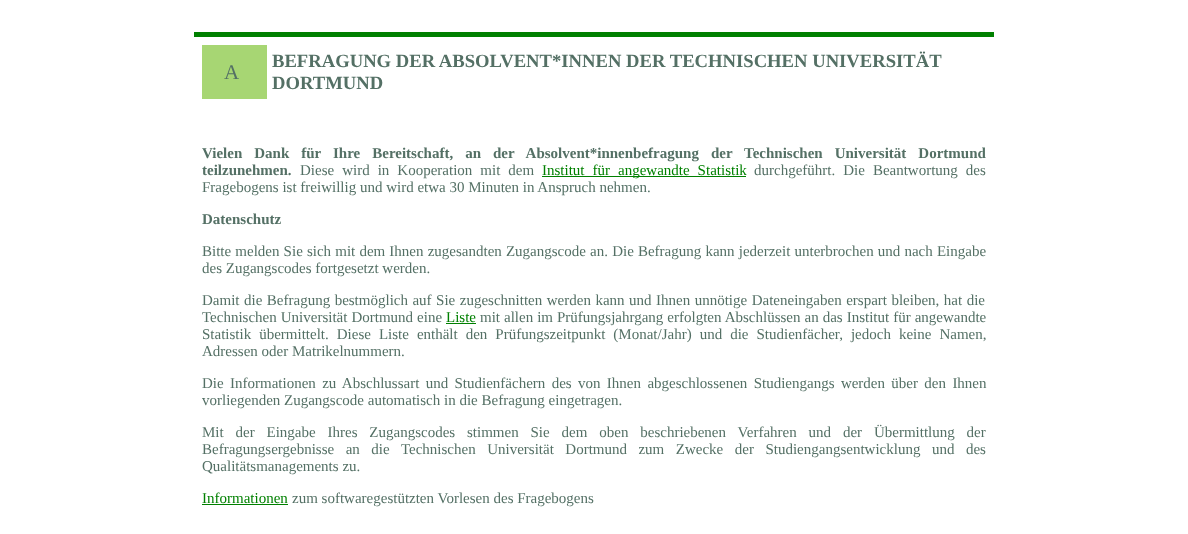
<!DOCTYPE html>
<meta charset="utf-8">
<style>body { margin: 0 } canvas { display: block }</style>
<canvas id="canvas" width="1188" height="534"></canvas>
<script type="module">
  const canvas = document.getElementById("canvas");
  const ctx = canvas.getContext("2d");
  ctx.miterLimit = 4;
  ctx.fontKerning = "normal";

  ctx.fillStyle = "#ffffff";
  ctx.fillRect(0, 0, 1188, 534);
  ctx.fillStyle = "#008000";
  ctx.fillRect(194, 32, 800, 5);
  ctx.fillStyle = "#a7d673";
  ctx.fillRect(202, 45, 65, 54);
  ctx.font = "21px Liberation Serif";
  ctx.fillStyle = "#547065";
  ctx.fillText("A", 224, 79);
  ctx.font = "bold 18.65px Liberation Serif";
  ctx.fillText("BEFRAGUNG DER ABSOLVENT*INNEN DER TECHNISCHEN UNIVERSITÄT", 272, 67);
  ctx.fillText("DORTMUND", 272, 89);
  ctx.wordSpacing = "8.25px";
  ctx.font = "bold 15px Liberation Serif";
  ctx.fillText("Vielen Dank für Ihre Bereitschaft, an der Absolvent*innenbefragung der Technischen Universität Dortmund", 202, 158);
  ctx.wordSpacing = "0px";
  ctx.fillText("teilzunehmen.", 202, 175);
  ctx.wordSpacing = "4.25px";
  ctx.font = "15px Liberation Serif";
  ctx.fillText("Diese wird in Kooperation mit dem", 300, 175);
  ctx.fillStyle = "#008000";
  ctx.fillRect(542, 176, 204, 1);
  ctx.fillText("Institut für angewandte Statistik", 542, 175);
  ctx.fillStyle = "#547065";
  ctx.fillText("durchgeführt. Die Beantwortung des", 754, 175);
  ctx.wordSpacing = "0px";
  ctx.fillText("Fragebogens ist freiwillig und wird etwa 30 Minuten in Anspruch nehmen.", 202, 192);
  ctx.font = "bold 15px Liberation Serif";
  ctx.fillText("Datenschutz", 202, 224);
  ctx.wordSpacing = "0.4px";
  ctx.font = "15px Liberation Serif";
  ctx.fillText("Bitte melden Sie sich mit dem Ihnen zugesandten Zugangscode an. Die Befragung kann jederzeit unterbrochen und nach Eingabe", 202, 256);
  ctx.wordSpacing = "0px";
  ctx.fillText("des Zugangscodes fortgesetzt werden.", 202, 273);
  ctx.wordSpacing = "0.75px";
  ctx.fillText("Damit die Befragung bestmöglich auf Sie zugeschnitten werden kann und Ihnen unnötige Dateneingaben erspart bleiben, hat die", 202, 305);
  ctx.wordSpacing = "0.25px";
  ctx.fillText("Technischen Universität Dortmund eine", 202, 322);
  ctx.wordSpacing = "0px";
  ctx.fillStyle = "#008000";
  ctx.fillText("Liste", 446, 322);
  ctx.fillRect(446, 323, 30, 1);
  ctx.wordSpacing = "0.25px";
  ctx.fillStyle = "#547065";
  ctx.fillText("mit allen im Prüfungsjahrgang erfolgten Abschlüssen an das Institut für angewandte", 480, 322);
  ctx.wordSpacing = "4.25px";
  ctx.fillText("Statistik übermittelt. Diese Liste enthält den Prüfungszeitpunkt (Monat/Jahr) und die Studienfächer, jedoch keine Namen,", 202, 339);
  ctx.wordSpacing = "0px";
  ctx.fillText("Adressen oder Matrikelnummern.", 202, 356);
  ctx.wordSpacing = "2.6px";
  ctx.fillText("Die Informationen zu Abschlussart und Studienfächern des von Ihnen abgeschlossenen Studiengangs werden über den Ihnen", 202, 388);
  ctx.wordSpacing = "0px";
  ctx.fillText("vorliegenden Zugangscode automatisch in die Befragung eingetragen.", 202, 405);
  ctx.wordSpacing = "8.1px";
  ctx.fillText("Mit der Eingabe Ihres Zugangscodes stimmen Sie dem oben beschriebenen Verfahren und der Übermittlung der", 202, 437);
  ctx.wordSpacing = "7.75px";
  ctx.fillText("Befragungsergebnisse an die Technischen Universität Dortmund zum Zwecke der Studiengangsentwicklung und des", 202, 454);
  ctx.wordSpacing = "0px";
  ctx.fillText("Qualitätsmanagements zu.", 202, 471);
  ctx.fillStyle = "#008000";
  ctx.fillText("Informationen", 202, 503);
  ctx.fillRect(202, 504, 86, 1);
  ctx.fillStyle = "#547065";
  ctx.fillText("zum softwaregestützten Vorlesen des Fragebogens", 292, 503);
</script>
